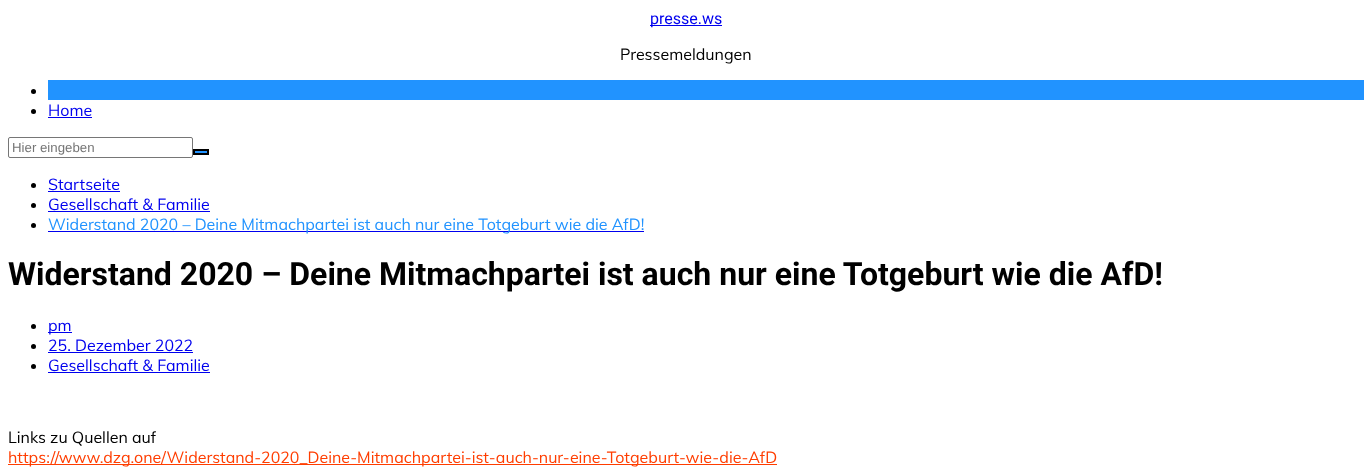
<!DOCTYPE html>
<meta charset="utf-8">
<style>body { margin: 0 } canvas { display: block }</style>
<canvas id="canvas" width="1372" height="474"></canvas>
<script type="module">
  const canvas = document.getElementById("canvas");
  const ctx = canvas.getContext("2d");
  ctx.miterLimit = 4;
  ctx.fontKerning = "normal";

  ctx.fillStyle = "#ffffff";
  ctx.fillRect(0, 0, 1372, 474);
  ctx.fillStyle = "#0000ee";
  ctx.fillRect(650, 25, 72, 1);
  ctx.font = "16px Roboto";
  ctx.fillText("presse.ws", 650, 24);
  ctx.font = "16px Muli";
  ctx.fillStyle = "#000000";
  ctx.fillText("Pressemeldungen", 620, 60);
  ctx.fillStyle = "#2193ff";
  ctx.fillRect(48, 80, 1316, 20);
  ctx.fillStyle = "#000000";
  ctx.beginPath();
  ctx.arc(33.5, 91.5, 2.5, 0, Math.PI * 2);
  ctx.fill();
  ctx.beginPath();
  ctx.arc(33.5, 111.5, 2.5, 0, Math.PI * 2);
  ctx.fill();
  ctx.fillStyle = "#0000ee";
  ctx.fillText("Home", 48, 116);
  ctx.fillRect(48, 117, 44, 1);
  ctx.beginPath();
  ctx.roundRect(8.5, 137.5, 184, 20, 1.5);
  ctx.strokeStyle = "#767676";
  ctx.stroke();
  ctx.font = "13.25px Liberation Sans";
  ctx.fillStyle = "#757575";
  ctx.fillText("Hier eingeben", 12, 152);
  ctx.fillStyle = "#2193ff";
  ctx.beginPath();
  ctx.rect(194, 150, 14, 4);
  ctx.fill();
  ctx.strokeStyle = "#000000";
  ctx.lineWidth = 2;
  ctx.stroke();
  ctx.fillStyle = "#000000";
  ctx.beginPath();
  ctx.arc(33.5, 185.5, 2.5, 0, Math.PI * 2);
  ctx.fill();
  ctx.font = "16px Muli";
  ctx.fillStyle = "#0000ee";
  ctx.fillText("Startseite", 48, 190);
  ctx.fillRect(48, 191, 72, 1);
  ctx.fillStyle = "#000000";
  ctx.beginPath();
  ctx.arc(33.5, 205.5, 2.5, 0, Math.PI * 2);
  ctx.fill();
  ctx.fillStyle = "#0000ee";
  ctx.fillText("Gesellschaft & Familie", 48, 210);
  ctx.fillRect(48, 211, 162, 1);
  ctx.fillStyle = "#000000";
  ctx.beginPath();
  ctx.arc(33.5, 225.5, 2.5, 0, Math.PI * 2);
  ctx.fill();
  ctx.fillStyle = "#0000ee";
  ctx.fillRect(48, 231, 596, 1);
  ctx.fillStyle = "#2193ff";
  ctx.fillText("Widerstand 2020 – Deine Mitmachpartei ist auch nur eine Totgeburt wie die AfD!", 48, 230);
  ctx.font = "bold 32px Roboto";
  ctx.fillStyle = "#000000";
  ctx.fillText("Widerstand 2020 – Deine Mitmachpartei ist auch nur eine Totgeburt wie die AfD!", 8, 285);
  ctx.beginPath();
  ctx.arc(33.5, 326.5, 2.5, 0, Math.PI * 2);
  ctx.fill();
  ctx.fillStyle = "#0000ee";
  ctx.fillRect(48, 332, 24, 1);
  ctx.font = "16px Muli";
  ctx.fillText("pm", 48, 331);
  ctx.fillStyle = "#000000";
  ctx.beginPath();
  ctx.arc(33.5, 346.5, 2.5, 0, Math.PI * 2);
  ctx.fill();
  ctx.fillStyle = "#0000ee";
  ctx.fillText("25. Dezember 2022", 48, 351);
  ctx.fillRect(48, 352, 145, 1);
  ctx.fillStyle = "#000000";
  ctx.beginPath();
  ctx.arc(33.5, 366.5, 2.5, 0, Math.PI * 2);
  ctx.fill();
  ctx.fillStyle = "#0000ee";
  ctx.fillText("Gesellschaft & Familie", 48, 371);
  ctx.fillRect(48, 372, 162, 1);
  ctx.fillStyle = "#000000";
  ctx.fillText("Links zu Quellen auf", 8, 443);
  ctx.fillStyle = "#ff3d00";
  ctx.fillRect(8, 464, 769, 1);
  ctx.fillText("https://www.dzg.one/Widerstand-2020_Deine-Mitmachpartei-ist-auch-nur-eine-Totgeburt-wie-die-AfD", 8, 463);
</script>
